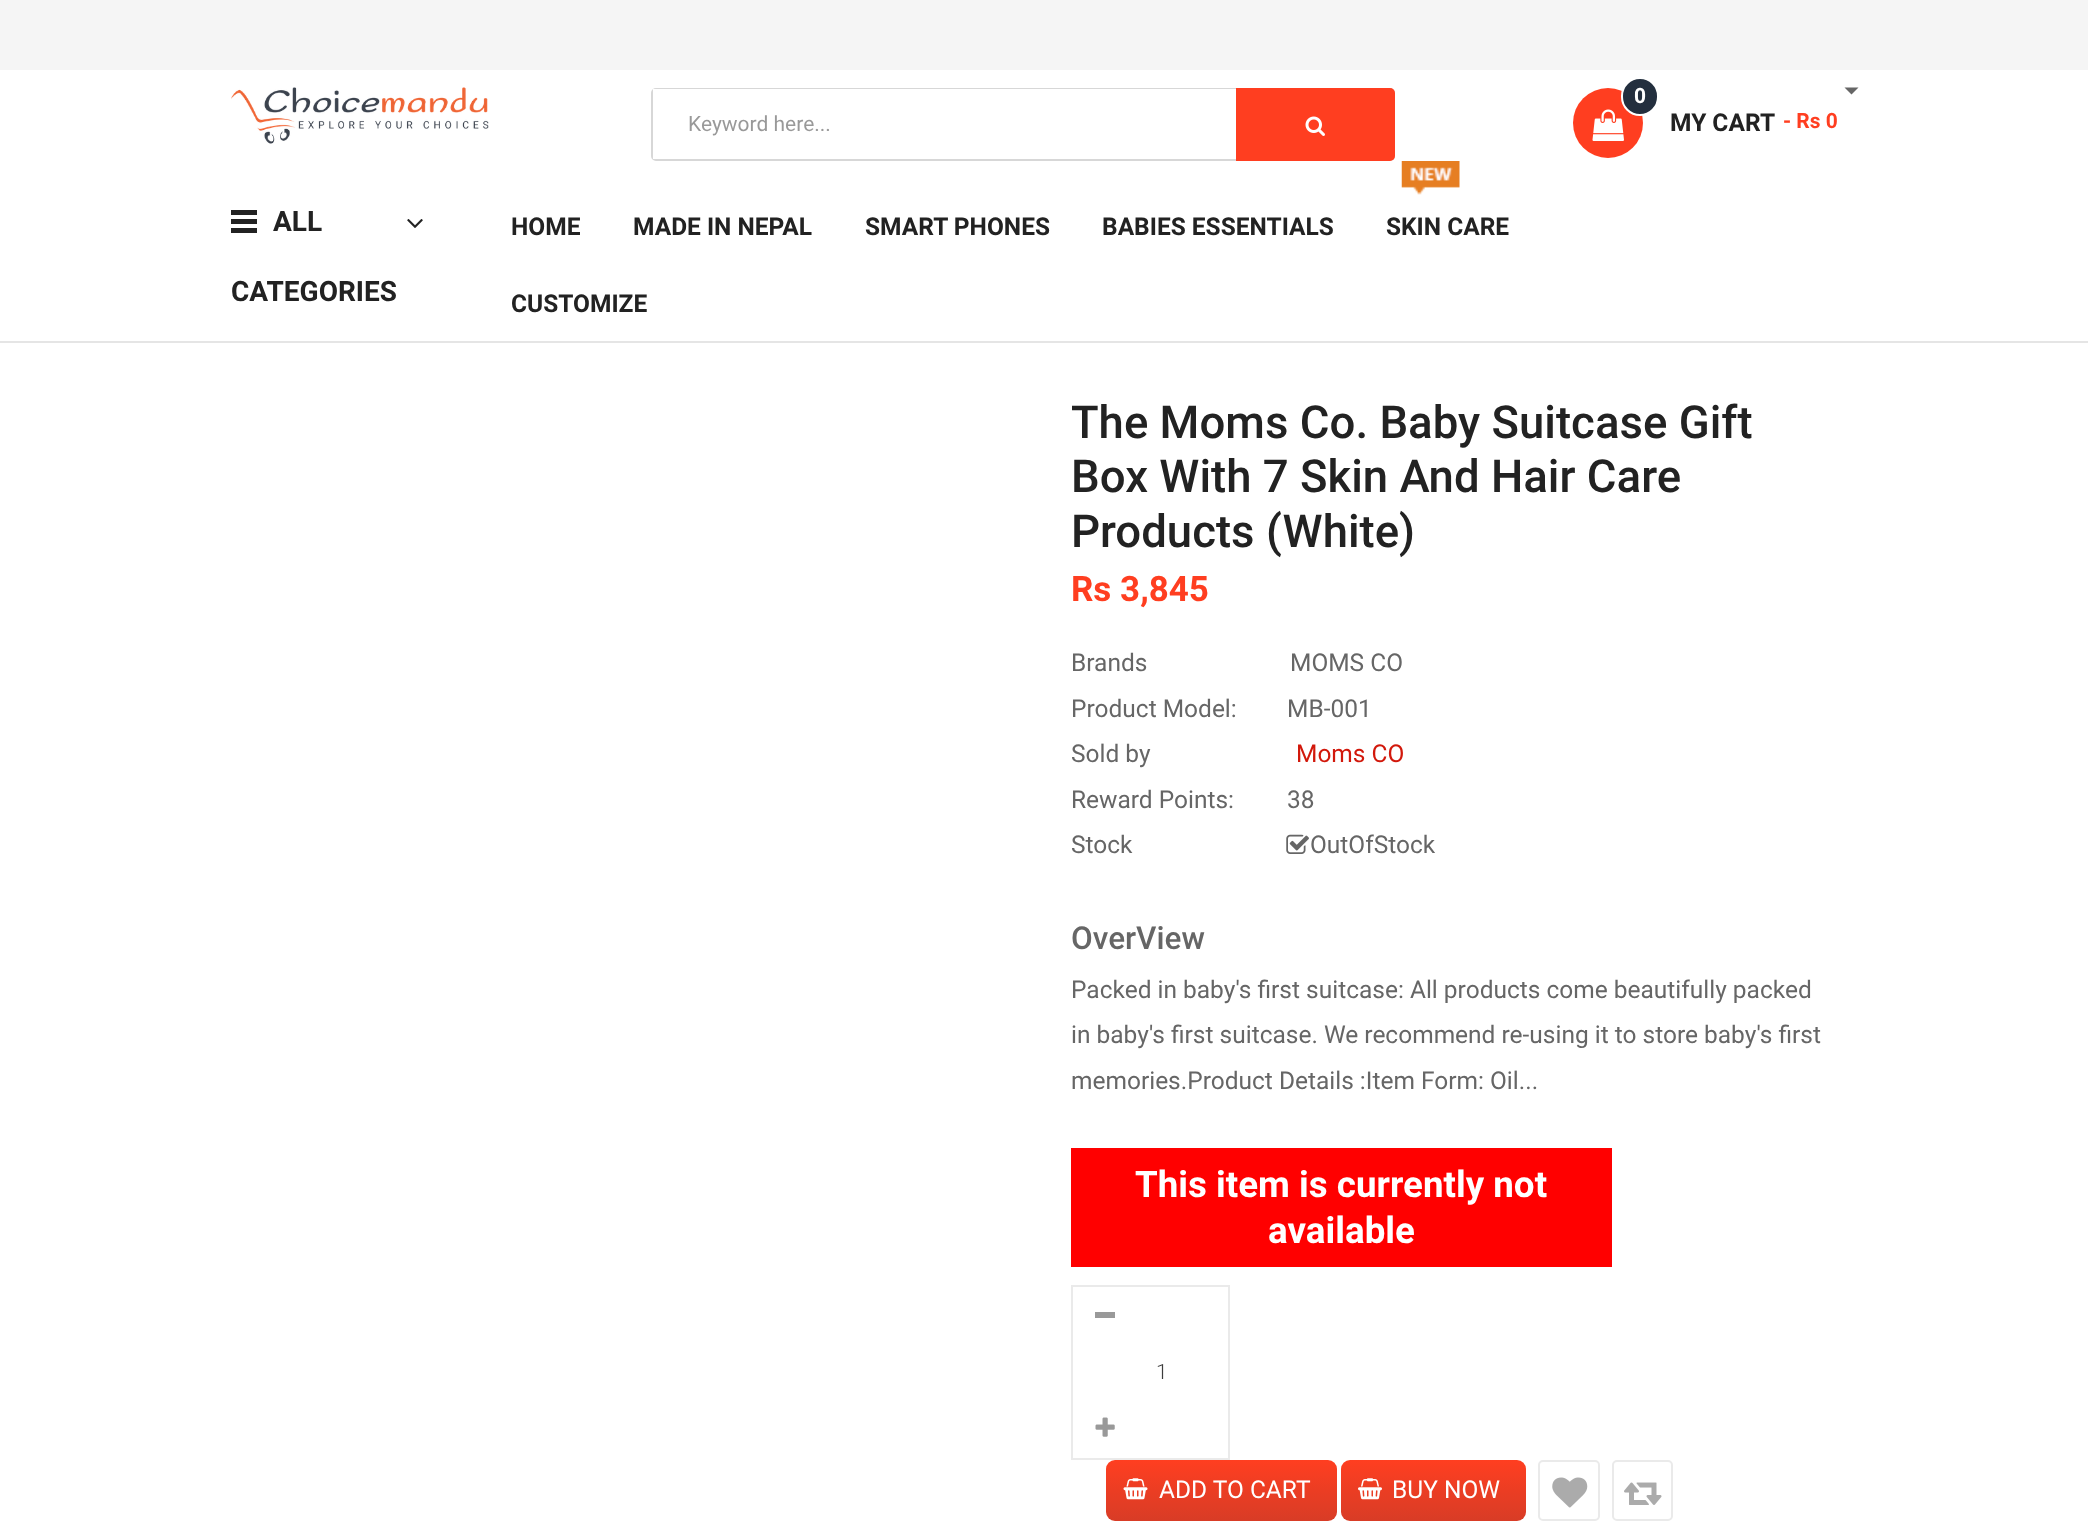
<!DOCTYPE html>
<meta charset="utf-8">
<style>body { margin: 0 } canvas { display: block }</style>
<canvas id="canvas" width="2088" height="1528"></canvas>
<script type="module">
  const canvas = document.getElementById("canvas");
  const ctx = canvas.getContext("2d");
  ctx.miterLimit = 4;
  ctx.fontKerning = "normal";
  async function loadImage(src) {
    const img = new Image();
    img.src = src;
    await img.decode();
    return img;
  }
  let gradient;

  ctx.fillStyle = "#ffffff";
  ctx.fillRect(0, 0, 2088, 1528);
  ctx.fillStyle = "#f5f5f5";
  ctx.fillRect(0, 0, 2088, 70);
  ctx.drawImage(await loadImage("img1.png"), 231, 87, 258, 57);
  ctx.beginPath();
  ctx.roundRect(652, 89, 742, 71, 4);
  ctx.strokeStyle = "#d7d7d7";
  ctx.lineWidth = 2;
  ctx.stroke();
  ctx.fillStyle = "#ffffff";
  ctx.fillRect(653, 89, 583, 70);
  ctx.font = "21px Roboto";
  ctx.fillStyle = "#999999";
  ctx.fillText("Keyword here...", 688, 131);
  ctx.fillStyle = "#ff3e20";
  ctx.beginPath();
  ctx.roundRect(1236, 88, 159, 73, [0, 5, 5, 0]);
  ctx.fill();
  ctx.drawImage(await loadImage("img2.png"), 1305, 116, 20, 20);
  ctx.beginPath();
  ctx.arc(1608, 123, 35, 0, Math.PI * 2);
  ctx.fill();
  ctx.drawImage(await loadImage("img3.png"), 1592, 109, 32, 32);
  ctx.fillStyle = "#232f3e";
  ctx.beginPath();
  ctx.roundRect(1622, 78, 36, 37, 18);
  ctx.fill();
  ctx.strokeStyle = "#ffffff";
  ctx.stroke();
  ctx.font = "bold 21px Roboto";
  ctx.fillStyle = "#ffffff";
  ctx.fillText("0", 1634, 103);
  ctx.fillStyle = "#ff3e20";
  ctx.fillText("- Rs 0", 1783, 128);
  ctx.font = "bold 24.5px Roboto";
  ctx.fillStyle = "#222222";
  ctx.fillText("MY CART", 1670, 131);
  ctx.fillStyle = "#666666";
  ctx.beginPath();
  ctx.moveTo(1844.5, 87.5);
  ctx.lineTo(1858.5, 87.5);
  ctx.lineTo(1851.5, 94.5);
  ctx.closePath();
  ctx.fill();
  ctx.fillStyle = "#e5e5e5";
  ctx.fillRect(0, 341, 2088, 2);
  ctx.fillStyle = "#222222";
  ctx.fillRect(231, 210, 26, 5);
  ctx.fillRect(231, 219, 26, 5);
  ctx.fillRect(231, 228, 26, 5);
  ctx.font = "bold 28px Roboto";
  ctx.fillText("ALL", 273, 231);
  ctx.drawImage(await loadImage("img4.png"), 407, 219, 16, 9);
  ctx.fillText("CATEGORIES", 231, 301);
  ctx.font = "bold 24.5px Roboto";
  ctx.fillText("HOME", 511, 235);
  ctx.fillText("MADE IN NEPAL", 633, 235);
  ctx.fillText("SMART PHONES", 865, 235);
  ctx.fillText("BABIES ESSENTIALS", 1102, 235);
  ctx.drawImage(await loadImage("img5.png"), 1401, 161, 59, 34);
  ctx.fillText("SKIN CARE", 1386, 235);
  ctx.fillText("CUSTOMIZE", 511, 312);
  ctx.font = "500 45.5px Roboto";
  ctx.fillText("The Moms Co. Baby Suitcase Gift", 1071, 438);
  ctx.fillText("Box With 7 Skin And Hair Care", 1071, 492);
  ctx.fillText("Products (White)", 1071, 547);
  ctx.font = "bold 35px Roboto";
  ctx.fillStyle = "#ff3e20";
  ctx.fillText("Rs 3,845", 1071, 601);
  ctx.font = "24.5px Roboto";
  ctx.fillStyle = "#666666";
  ctx.fillText("Brands", 1071, 671);
  ctx.fillText("MOMS CO", 1290, 671);
  ctx.fillText("Product Model:", 1071, 717);
  ctx.fillText("MB-001", 1287, 717);
  ctx.fillText("Sold by", 1071, 762);
  ctx.fillStyle = "#d2180b";
  ctx.fillText("Moms CO", 1296, 762);
  ctx.fillStyle = "#666666";
  ctx.fillText("Reward Points:", 1071, 808);
  ctx.fillText("38", 1287, 808);
  ctx.fillText("Stock", 1071, 853);
  ctx.drawImage(await loadImage("img6.png"), 1286, 834, 23, 20);
  ctx.fillText("OutOfStock", 1310, 853);
  ctx.font = "500 31.5px Roboto";
  ctx.fillText("OverView", 1071, 949);
  ctx.font = "24.5px Roboto";
  ctx.fillText("Packed in baby's first suitcase: All products come beautifully packed", 1071, 998);
  ctx.fillText("in baby's first suitcase. We recommend re-using it to store baby's first", 1071, 1043);
  ctx.fillText("memories.Product Details :Item Form: Oil...", 1071, 1089);
  ctx.fillStyle = "#ff0000";
  ctx.fillRect(1071, 1148, 541, 119);
  ctx.font = "bold 36.75px Roboto";
  ctx.fillStyle = "#ffffff";
  ctx.fillText("This item is currently not", 1135, 1197);
  ctx.fillText("available", 1268, 1243);
  ctx.strokeStyle = "#eaeaea";
  ctx.strokeRect(1072, 1286, 157, 173);
  ctx.fillStyle = "#999999";
  ctx.fillRect(1095, 1312, 20, 6);
  ctx.font = "300 21px Roboto";
  ctx.fillStyle = "#3d3d3d";
  ctx.fillText("1", 1156, 1379);
  ctx.drawImage(await loadImage("img7.png"), 1095, 1417, 20, 20);
  gradient = ctx.createLinearGradient(1222, 1460, 1222, 1521);
  gradient.addColorStop(0, "#ff3e20");
  gradient.addColorStop(0.25, "#f53e22");
  gradient.addColorStop(0.5, "#eb3d23");
  gradient.addColorStop(0.75, "#e23d25");
  gradient.addColorStop(1, "#d83c26");
  ctx.fillStyle = gradient;
  ctx.beginPath();
  ctx.roundRect(1106, 1460, 231, 61, 9);
  ctx.fill();
  ctx.drawImage(await loadImage("img8.png"), 1123, 1478, 25, 22);
  ctx.font = "24.5px Roboto";
  ctx.fillStyle = "#ffffff";
  ctx.fillText("ADD TO CART", 1159, 1498);
  gradient = ctx.createLinearGradient(1433, 1460, 1433, 1521);
  gradient.addColorStop(0, "#ff3e20");
  gradient.addColorStop(0.25, "#f53e22");
  gradient.addColorStop(0.5, "#eb3d23");
  gradient.addColorStop(0.75, "#e23d25");
  gradient.addColorStop(1, "#d83c26");
  ctx.fillStyle = gradient;
  ctx.beginPath();
  ctx.roundRect(1341, 1460, 185, 61, 9);
  ctx.fill();
  ctx.drawImage(await loadImage("img9.png"), 1358, 1478, 24, 22);
  ctx.fillStyle = "#ffffff";
  ctx.fillText("BUY NOW", 1392, 1498);
  ctx.beginPath();
  ctx.roundRect(1539, 1461, 60, 59, 4);
  ctx.stroke();
  ctx.drawImage(await loadImage("img10.png"), 1552, 1477, 36, 31);
  ctx.beginPath();
  ctx.roundRect(1613, 1461, 59, 59, 4);
  ctx.stroke();
  ctx.drawImage(await loadImage("img11.png"), 1624, 1482, 38, 23);
</script>
